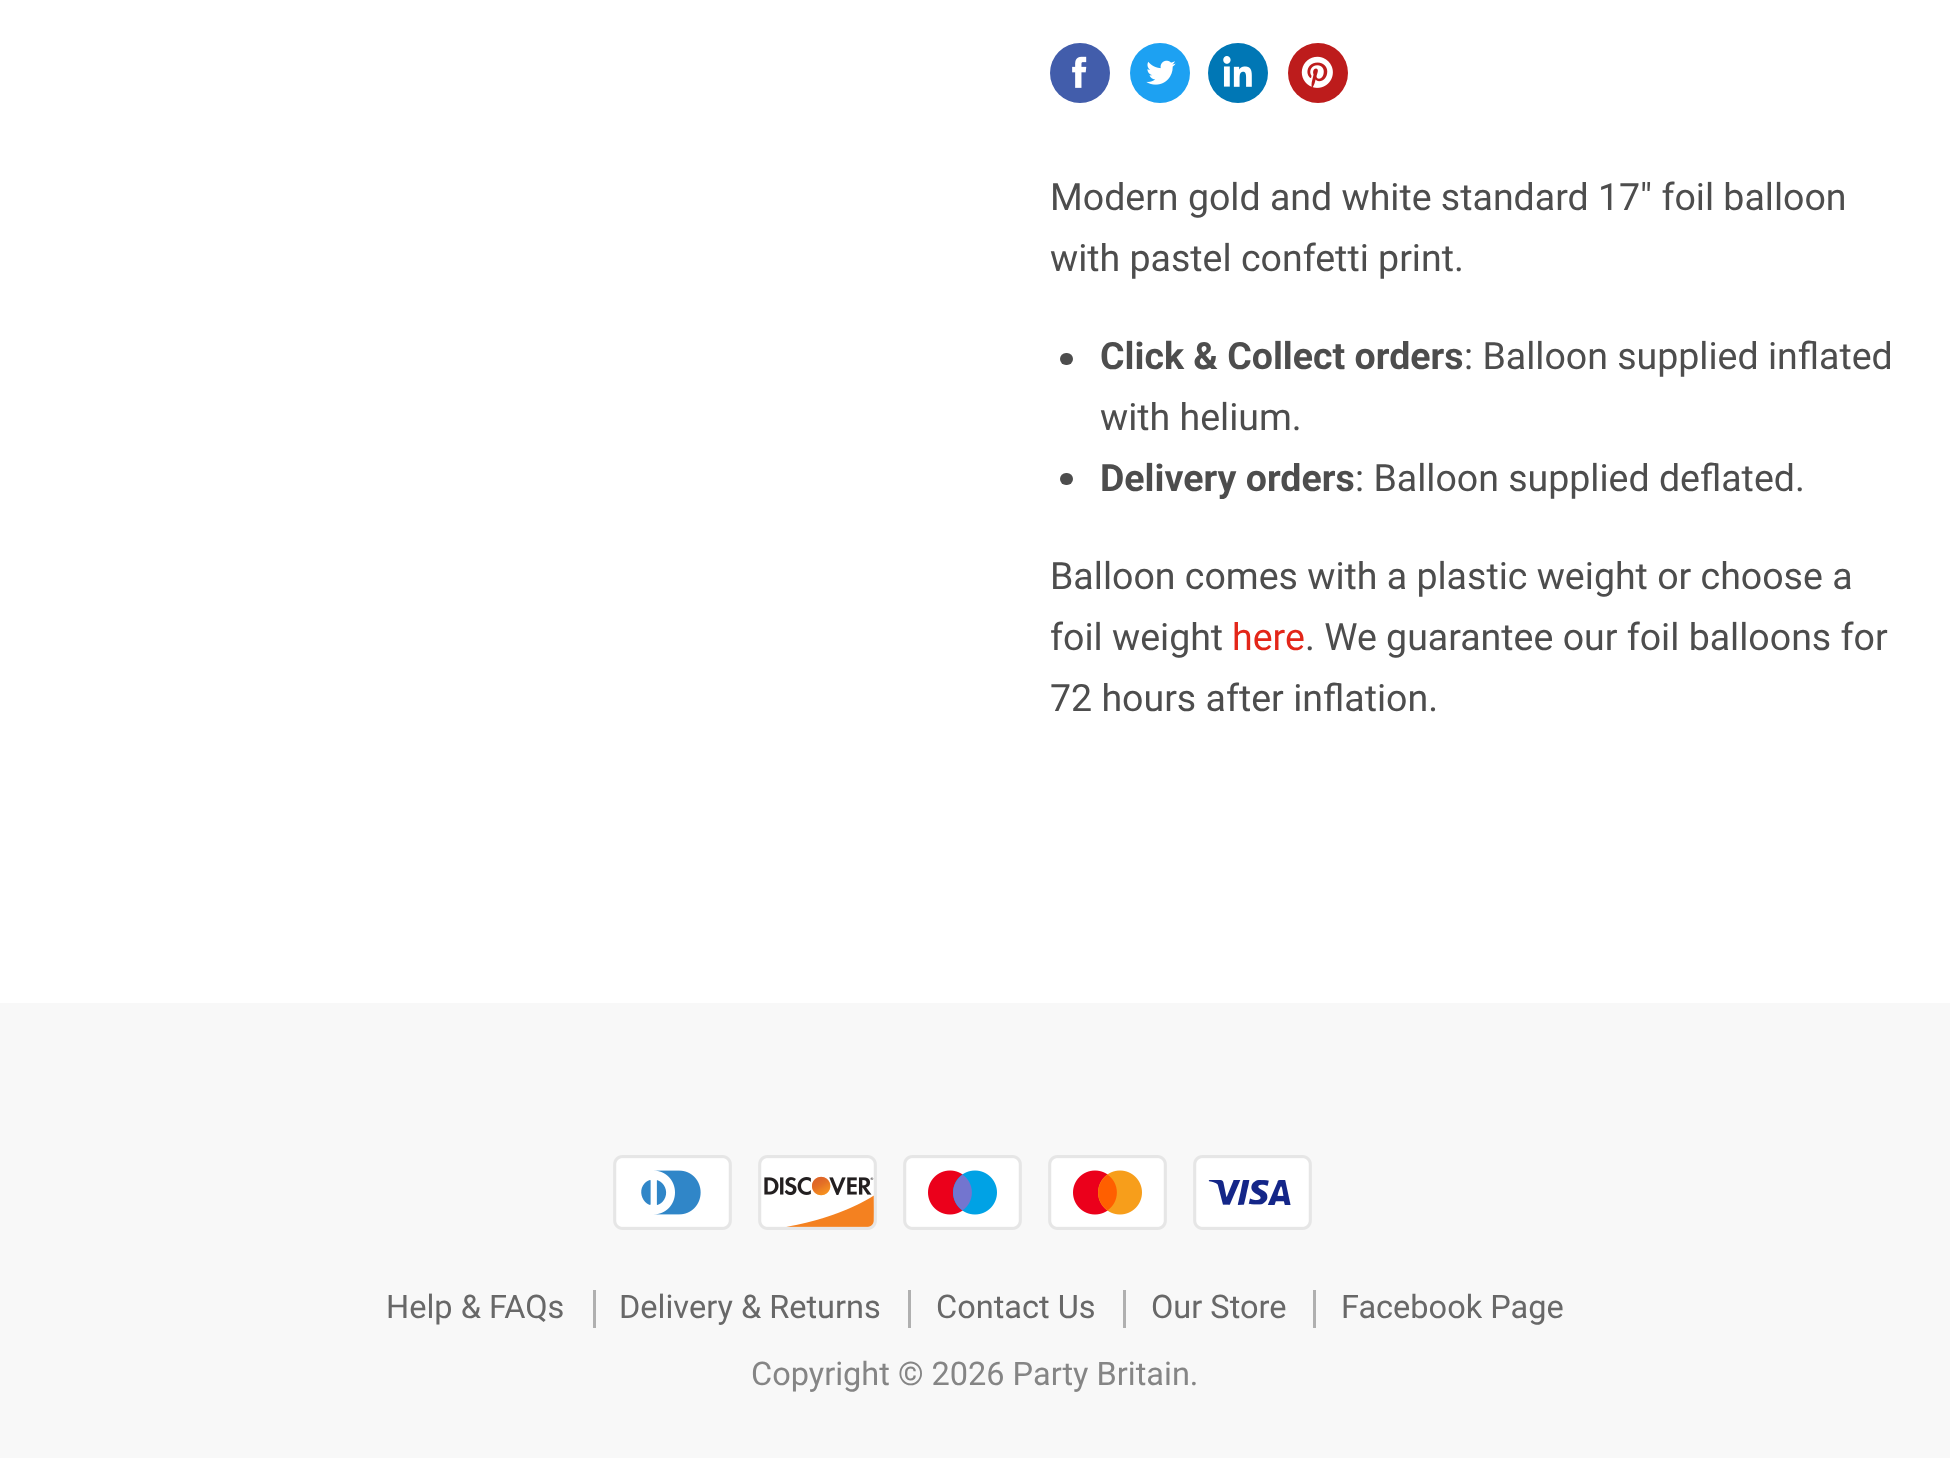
<!DOCTYPE html>
<meta charset="utf-8">
<style>body { margin: 0 } canvas { display: block }</style>
<canvas id="canvas" width="1950" height="1458"></canvas>
<script type="module">
  const canvas = document.getElementById("canvas");
  const ctx = canvas.getContext("2d");
  ctx.miterLimit = 4;
  ctx.fontKerning = "normal";
  async function loadImage(src) {
    const img = new Image();
    img.src = src;
    await img.decode();
    return img;
  }

  ctx.fillStyle = "#ffffff";
  ctx.fillRect(0, 0, 1950, 1458);
  ctx.fillStyle = "#425dab";
  ctx.beginPath();
  ctx.arc(1080, 73, 30, 0, Math.PI * 2);
  ctx.fill();
  ctx.drawImage(await loadImage("img1.png"), 1072, 56, 15, 32);
  ctx.fillStyle = "#1da1f2";
  ctx.beginPath();
  ctx.arc(1160, 73, 30, 0, Math.PI * 2);
  ctx.fill();
  ctx.drawImage(await loadImage("img2.png"), 1146, 60, 30, 25);
  ctx.fillStyle = "#0077b5";
  ctx.beginPath();
  ctx.arc(1238, 73, 30, 0, Math.PI * 2);
  ctx.fill();
  ctx.drawImage(await loadImage("img3.png"), 1223, 56, 29, 31);
  ctx.fillStyle = "#bd1c1c";
  ctx.beginPath();
  ctx.arc(1318, 73, 30, 0, Math.PI * 2);
  ctx.fill();
  ctx.drawImage(await loadImage("img4.png"), 1301, 56, 32, 32);
  ctx.font = "37.5px Roboto";
  ctx.fillStyle = "#4d4d4d";
  ctx.fillText("Modern gold and white standard 17\" foil balloon", 1050, 210);
  ctx.fillText("with pastel confetti print.", 1050, 271);
  ctx.beginPath();
  ctx.roundRect(1060, 353, 13, 12, 6);
  ctx.fill();
  ctx.font = "bold 37.5px Roboto";
  ctx.fillText("Click & Collect orders", 1100, 369);
  ctx.font = "37.5px Roboto";
  ctx.fillText(": Balloon supplied inflated", 1464, 369);
  ctx.fillText("with helium.", 1100, 430);
  ctx.beginPath();
  ctx.roundRect(1060, 473, 13, 12, 6);
  ctx.fill();
  ctx.font = "bold 37.5px Roboto";
  ctx.fillText("Delivery orders", 1100, 491);
  ctx.font = "37.5px Roboto";
  ctx.fillText(": Balloon supplied deflated.", 1355, 491);
  ctx.fillText("Balloon comes with a plastic weight or choose a", 1050, 589);
  ctx.fillText("foil weight", 1050, 650);
  ctx.fillStyle = "#e32619";
  ctx.fillText("here", 1232, 650);
  ctx.fillStyle = "#4d4d4d";
  ctx.fillText(". We guarantee our foil balloons for", 1305, 650);
  ctx.fillText("72 hours after inflation.", 1050, 711);
  ctx.fillStyle = "#f8f8f8";
  ctx.fillRect(0, 1003, 1950, 455);
  ctx.drawImage(await loadImage("img5.png"), 613, 1155, 119, 75);
  ctx.drawImage(await loadImage("img6.png"), 758, 1155, 119, 75);
  ctx.drawImage(await loadImage("img7.png"), 903, 1155, 119, 75);
  ctx.drawImage(await loadImage("img8.png"), 1048, 1155, 119, 75);
  ctx.drawImage(await loadImage("img9.png"), 1193, 1155, 119, 75);
  ctx.fillStyle = "#b0b0b0";
  ctx.fillRect(593, 1290, 3, 38);
  ctx.font = "32.5px Roboto";
  ctx.fillStyle = "#686868";
  ctx.fillText("Help & FAQs", 386, 1318);
  ctx.fillStyle = "#b0b0b0";
  ctx.fillRect(908, 1290, 3, 38);
  ctx.fillStyle = "#686868";
  ctx.fillText("Delivery & Returns", 619, 1318);
  ctx.fillStyle = "#b0b0b0";
  ctx.fillRect(1123, 1290, 3, 38);
  ctx.fillStyle = "#686868";
  ctx.fillText("Contact Us", 936, 1318);
  ctx.fillStyle = "#b0b0b0";
  ctx.fillRect(1313, 1290, 3, 38);
  ctx.fillStyle = "#686868";
  ctx.fillText("Our Store", 1151, 1318);
  ctx.fillText("Facebook Page", 1341, 1318);
  ctx.fillStyle = "#858585";
  ctx.fillText("Copyright © 2026 Party Britain.", 751, 1385);
</script>
